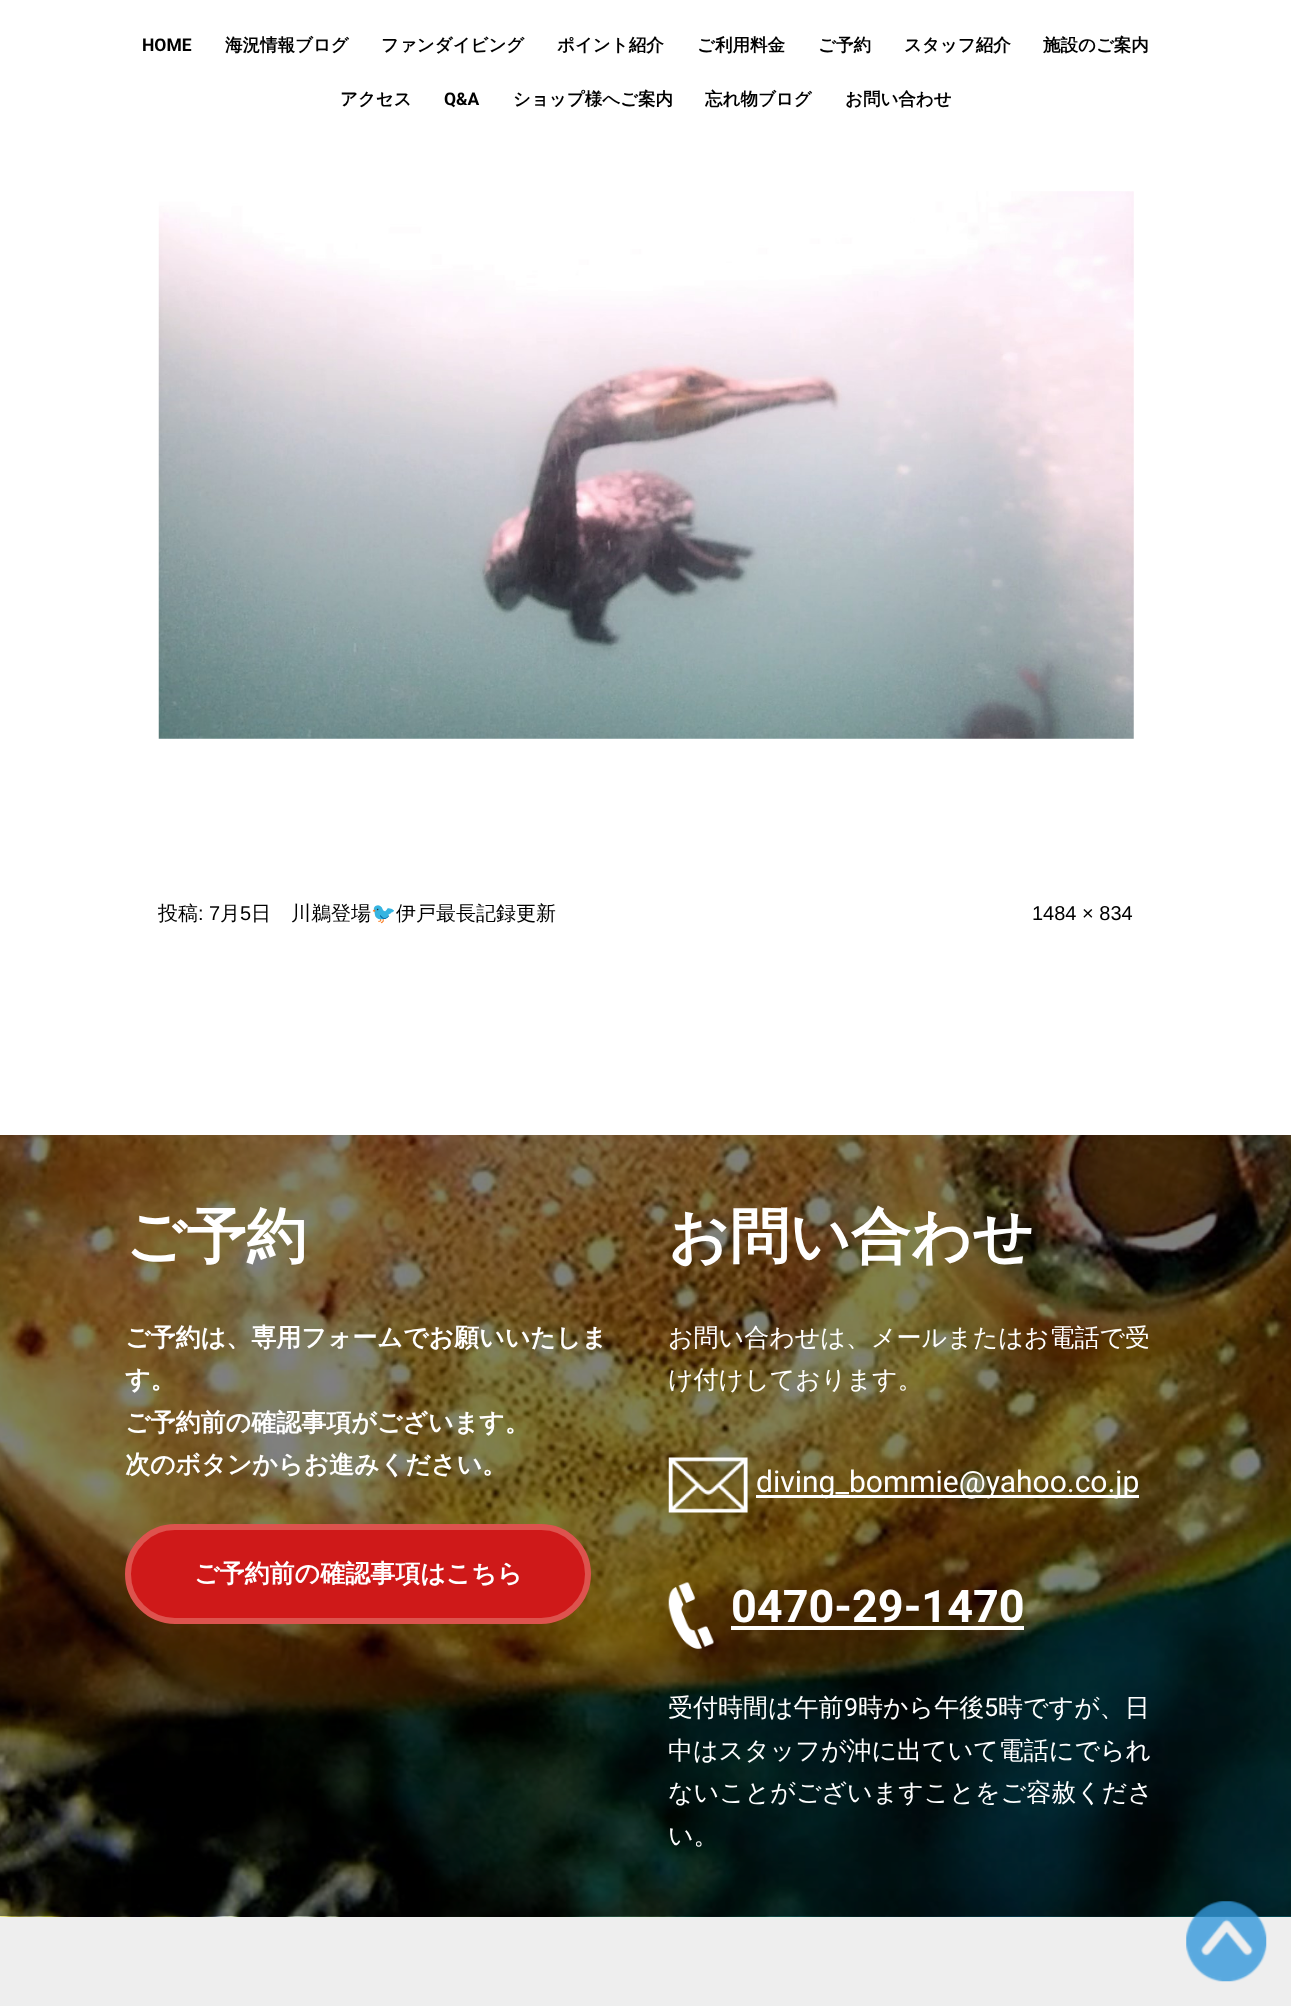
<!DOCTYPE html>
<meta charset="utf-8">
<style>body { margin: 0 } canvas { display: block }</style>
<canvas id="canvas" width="1291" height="2006"></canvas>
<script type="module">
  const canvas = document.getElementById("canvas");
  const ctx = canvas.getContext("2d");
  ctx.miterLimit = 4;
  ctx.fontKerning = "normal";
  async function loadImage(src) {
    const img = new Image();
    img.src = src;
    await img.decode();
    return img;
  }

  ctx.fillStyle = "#ffffff";
  ctx.fillRect(0, 0, 1291, 2006);
  ctx.font = "bold 17.5px Roboto";
  ctx.fillStyle = "#000000";
  ctx.fillText("HOME", 142, 51);
  ctx.font = "bold 17.5px WenQuanYi Zen Hei";
  ctx.fillText("海況情報ブログ", 225, 51);
  ctx.fillText("ファンダイビング", 381, 51);
  ctx.fillText("ポイント紹介", 557, 51);
  ctx.fillText("ご利用料金", 697, 51);
  ctx.fillText("ご予約", 818, 51);
  ctx.fillText("スタッフ紹介", 904, 51);
  ctx.fillText("施設のご案内", 1043, 51);
  ctx.fillText("アクセス", 340, 105);
  ctx.font = "bold 17.5px Roboto";
  ctx.fillText("Q&A", 444, 105);
  ctx.font = "bold 17.5px WenQuanYi Zen Hei";
  ctx.fillText("ショップ様へご案内", 513, 105);
  ctx.fillText("忘れ物ブログ", 705, 105);
  ctx.fillText("お問い合わせ", 845, 105);
  ctx.drawImage(await loadImage("img1.png"), 158, 191, 976, 548);
  ctx.font = "500 20px WenQuanYi Zen Hei";
  ctx.fillText("投稿", 158, 920);
  ctx.font = "20px Liberation Sans";
  ctx.fillText(": 7", 198, 920);
  ctx.font = "500 20px WenQuanYi Zen Hei";
  ctx.fillText("月", 220, 920);
  ctx.font = "20px Liberation Sans";
  ctx.fillText("5", 240, 920);
  ctx.font = "500 20px WenQuanYi Zen Hei";
  ctx.fillText("日　川鵜登場", 251, 920);
  ctx.font = "20px Noto Color Emoji";
  ctx.fillText("🐦", 371, 920);
  ctx.font = "500 20px WenQuanYi Zen Hei";
  ctx.fillText("伊戸最長記録更新", 396, 920);
  ctx.font = "20px Liberation Sans";
  ctx.fillText("1484 × 834", 1032, 920);
  ctx.fillStyle = "#eeeeee";
  ctx.fillRect(0, 1917, 1291, 89);
  ctx.drawImage(await loadImage("img2.png"), 0, 1135, 1291, 782);
  ctx.font = "bold 60px WenQuanYi Zen Hei";
  ctx.fillStyle = "#ffffff";
  ctx.fillText("ご予約", 125, 1257);
  ctx.font = "bold 25px WenQuanYi Zen Hei";
  ctx.fillText("ご予約は、専用フォームでお願いいたしま", 125, 1346);
  ctx.fillText("す。", 125, 1388);
  ctx.fillText("ご予約前の確認事項がございます。", 125, 1431);
  ctx.fillText("次のボタンからお進みください。", 125, 1473);
  ctx.fillStyle = "#cf1919";
  ctx.beginPath();
  ctx.roundRect(128, 1527, 460, 94, 47);
  ctx.fill();
  ctx.strokeStyle = "#dd534e";
  ctx.lineWidth = 6;
  ctx.stroke();
  ctx.fillStyle = "#ffffff";
  ctx.fillText("ご予約前の確認事項はこちら", 194, 1582);
  ctx.font = "bold 60px WenQuanYi Zen Hei";
  ctx.fillText("お問い合わせ", 668, 1257);
  ctx.font = "500 25px WenQuanYi Zen Hei";
  ctx.fillText("お問い合わせは、メールまたはお電話で受", 668, 1346);
  ctx.fillText("け付けしております。", 668, 1388);
  ctx.drawImage(await loadImage("img3.png"), 668, 1457, 80, 56);
  ctx.fillRect(756, 1495, 383, 3);
  ctx.font = "30px Roboto";
  ctx.fillText("diving_bommie@yahoo.co.jp", 756, 1492);
  ctx.drawImage(await loadImage("img4.png"), 668, 1582, 46, 67);
  ctx.font = "bold 45px Roboto";
  ctx.fillText("0470-29-1470", 731, 1622);
  ctx.fillRect(731, 1626, 293, 4);
  ctx.font = "500 25px WenQuanYi Zen Hei";
  ctx.fillText("受付時間は午前", 668, 1716);
  ctx.font = "25px Roboto";
  ctx.fillText("9", 844, 1716);
  ctx.font = "500 25px WenQuanYi Zen Hei";
  ctx.fillText("時から午後", 858, 1716);
  ctx.font = "25px Roboto";
  ctx.fillText("5", 984, 1716);
  ctx.font = "500 25px WenQuanYi Zen Hei";
  ctx.fillText("時ですが、日", 998, 1716);
  ctx.fillText("中はスタッフが沖に出ていて電話にでられ", 668, 1759);
  ctx.fillText("ないことがございますことをご容赦くださ", 668, 1801);
  ctx.fillText("い。", 668, 1844);
  ctx.drawImage(await loadImage("img5.png"), 1186, 1901, 81, 81);
</script>
